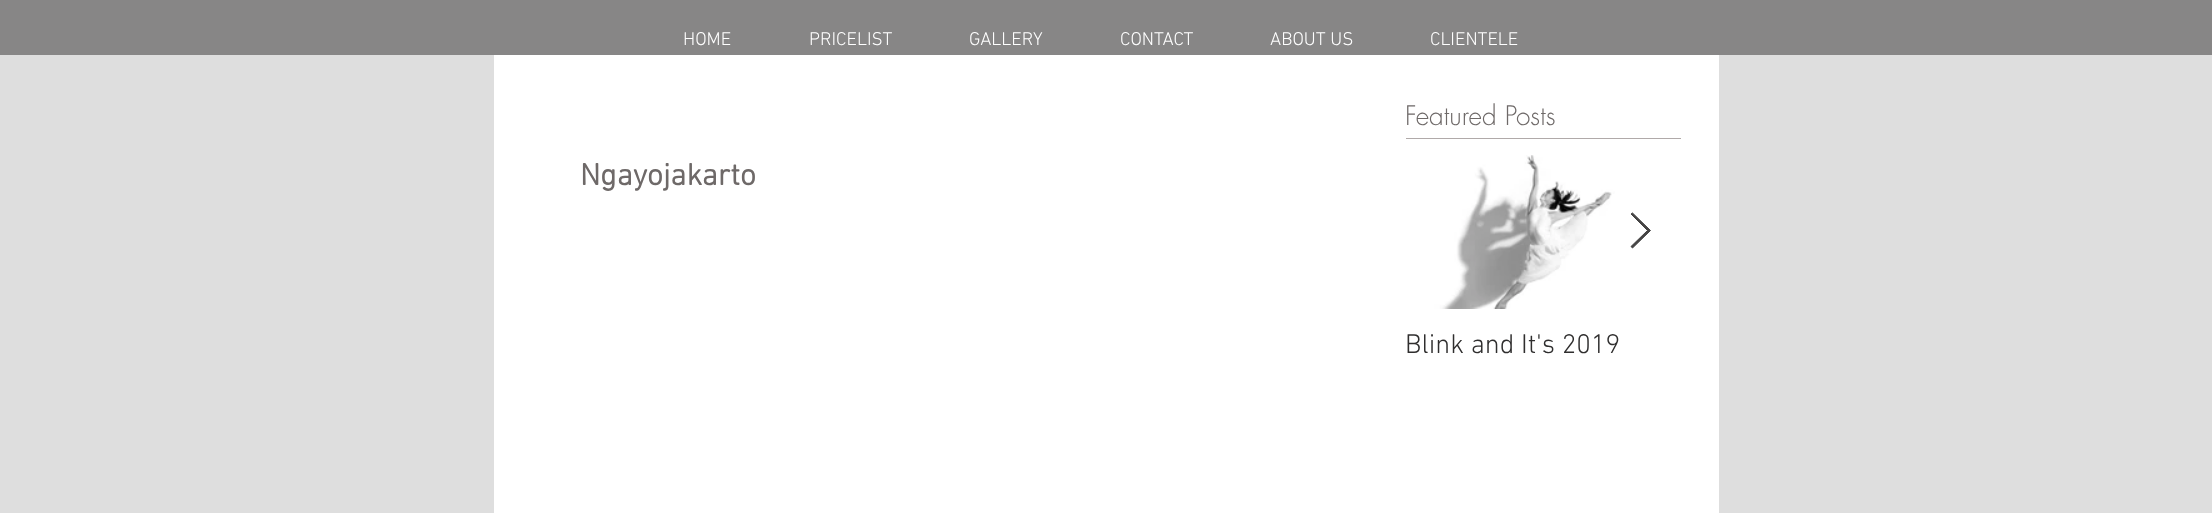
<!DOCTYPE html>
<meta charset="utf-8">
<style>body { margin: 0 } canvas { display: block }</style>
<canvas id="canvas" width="2212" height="513"></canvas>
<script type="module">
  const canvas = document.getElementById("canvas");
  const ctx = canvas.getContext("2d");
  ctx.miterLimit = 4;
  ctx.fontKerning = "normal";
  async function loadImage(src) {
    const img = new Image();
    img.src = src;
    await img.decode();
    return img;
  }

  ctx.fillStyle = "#dedede";
  ctx.fillRect(0, 0, 2212, 513);
  ctx.fillStyle = "#878686";
  ctx.fillRect(0, 0, 2212, 55);
  ctx.font = "300 18.75px 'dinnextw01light'";
  ctx.fillStyle = "#ffffff";
  ctx.fillText("HOME", 683, 45);
  ctx.fillText("PRICELIST", 809, 45);
  ctx.fillText("GALLERY", 969, 45);
  ctx.fillText("CONTACT", 1120, 45);
  ctx.fillText("ABOUT US", 1270, 45);
  ctx.fillText("CLIENTELE", 1430, 45);
  ctx.fillRect(494, 55, 1225, 458);
  ctx.font = "300 26.25px futura";
  ctx.fillStyle = "#6e6968";
  ctx.fillText("Featured Posts", 1405, 125);
  ctx.fillStyle = "#b0aaa9";
  ctx.fillRect(1406, 138, 275, 1);
  ctx.font = "bold 31.25px 'dinnextw01light'";
  ctx.fillStyle = "#6e6968";
  ctx.fillText("Ngayojakarto", 580, 185);
  ctx.fillStyle = "#444343";
  ctx.beginPath();
  ctx.moveTo(1631, 214);
  ctx.lineTo(1632.5, 213);
  ctx.lineTo(1650.5, 230.5);
  ctx.lineTo(1632.5, 248);
  ctx.lineTo(1631, 246.5);
  ctx.lineTo(1647.5, 230.5);
  ctx.closePath();
  ctx.fill();
  ctx.strokeStyle = "#444343";
  ctx.stroke();
  ctx.drawImage(await loadImage("img1.png"), 1423, 155, 192, 154);
  ctx.font = "300 27.5px 'dinnextw01light'";
  ctx.fillStyle = "#2f2e2e";
  ctx.fillText("Blink and It's 2019", 1405, 353);
</script>
